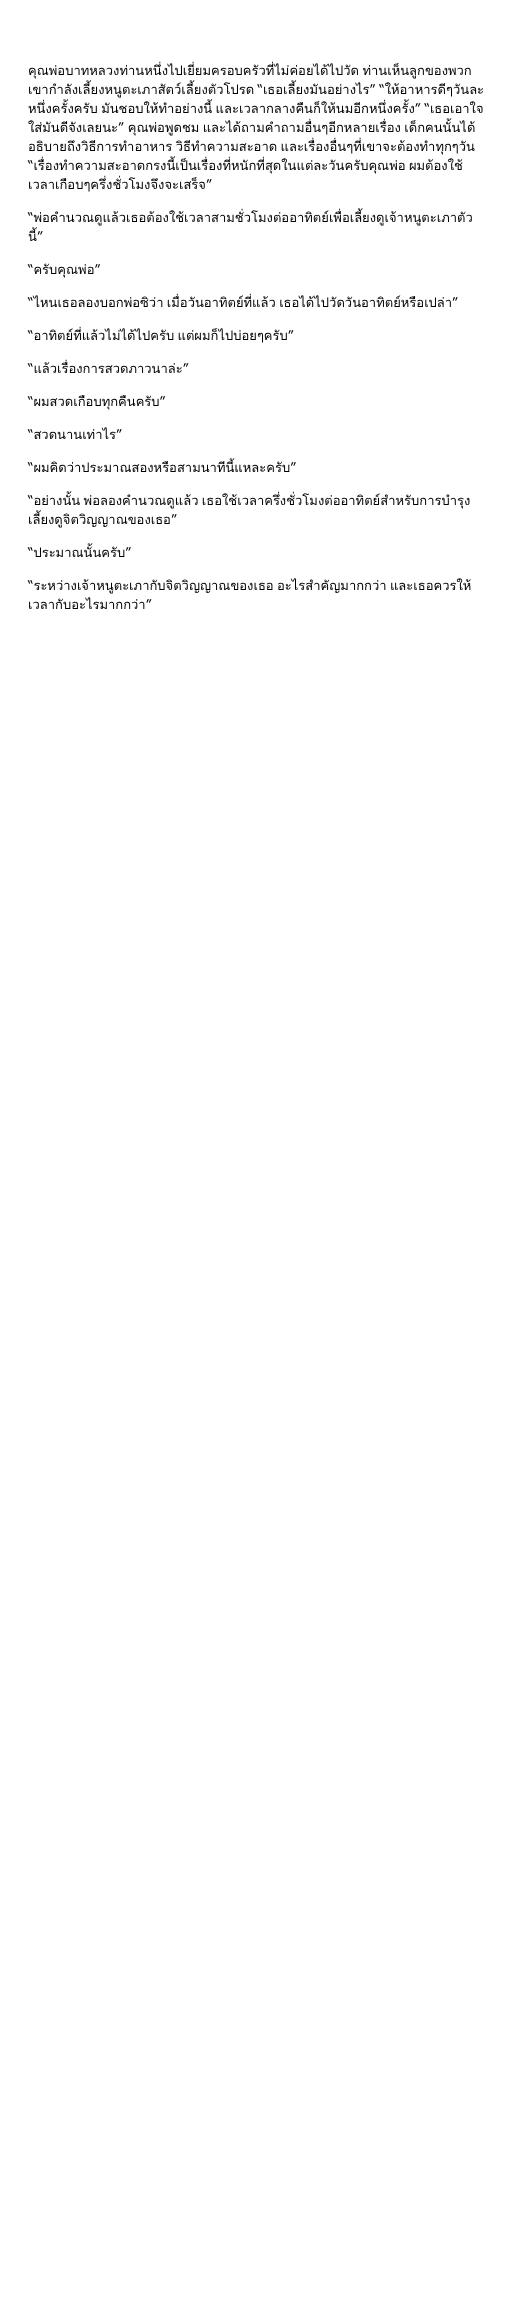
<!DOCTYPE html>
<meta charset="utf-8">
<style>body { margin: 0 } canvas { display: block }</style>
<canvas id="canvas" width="512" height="2299"></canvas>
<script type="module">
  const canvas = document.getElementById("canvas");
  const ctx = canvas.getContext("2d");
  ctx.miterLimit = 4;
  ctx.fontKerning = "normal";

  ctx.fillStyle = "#ffffff";
  ctx.fillRect(0, 0, 512, 2299);
  ctx.wordSpacing = "-1px";
  ctx.font = "13px Loma";
  ctx.fillStyle = "#000000";
  ctx.fillText("คุณพ่อบาทหลวงท่านหนึ่งไปเยี่ยมครอบครัวที่ไม่ค่อยได้ไปวัด ท่านเห็นลูกของพวก", 28, 75);
  ctx.fillText("เขากำลังเลี้ยงหนูตะเภาสัตว์เลี้ยงตัวโปรด “เธอเลี้ยงมันอย่างไร” “ให้อาหารดีๆวันละ", 28, 94);
  ctx.fillText("หนึ่งครั้งครับ มันชอบให้ทำอย่างนี้ และเวลากลางคืนก็ให้นมอีกหนึ่งครั้ง” “เธอเอาใจ", 28, 113);
  ctx.fillText("ใส่มันดีจังเลยนะ” คุณพ่อพูดชม และได้ถามคำถามอื่นๆอีกหลายเรื่อง เด็กคนนั้นได้", 28, 132);
  ctx.fillText("อธิบายถึงวิธีการทำอาหาร วิธีทำความสะอาด และเรื่องอื่นๆที่เขาจะต้องทำทุกๆวัน", 28, 151);
  ctx.fillText("“เรื่องทำความสะอาดกรงนี้เป็นเรื่องที่หนักที่สุดในแต่ละวันครับคุณพ่อ ผมต้องใช้", 28, 170);
  ctx.wordSpacing = "0px";
  ctx.fillText("เวลาเกือบๆครึ่งชั่วโมงจึงจะเสร็จ”", 28, 189);
  ctx.fillText("“พ่อคำนวณดูแล้วเธอต้องใช้เวลาสามชั่วโมงต่ออาทิตย์เพื่อเลี้ยงดูเจ้าหนูตะเภาตัว", 28, 222);
  ctx.fillText("นี้”", 28, 241);
  ctx.fillText("“ครับคุณพ่อ”", 28, 274);
  ctx.wordSpacing = "-1px";
  ctx.fillText("“ไหนเธอลองบอกพ่อซิว่า เมื่อวันอาทิตย์ที่แล้ว เธอได้ไปวัดวันอาทิตย์หรือเปล่า”", 28, 307);
  ctx.fillText("“อาทิตย์ที่แล้วไม่ได้ไปครับ แต่ผมก็ไปบ่อยๆครับ”", 28, 340);
  ctx.wordSpacing = "0px";
  ctx.fillText("“แล้วเรื่องการสวดภาวนาล่ะ”", 28, 373);
  ctx.fillText("“ผมสวดเกือบทุกคืนครับ”", 28, 406);
  ctx.fillText("“สวดนานเท่าไร”", 28, 439);
  ctx.fillText("“ผมคิดว่าประมาณสองหรือสามนาทีนี้แหละครับ”", 28, 472);
  ctx.wordSpacing = "-1px";
  ctx.fillText("“อย่างนั้น พ่อลองคำนวณดูแล้ว เธอใช้เวลาครึ่งชั่วโมงต่ออาทิตย์สำหรับการบำรุง", 28, 505);
  ctx.wordSpacing = "0px";
  ctx.fillText("เลี้ยงดูจิตวิญญาณของเธอ”", 28, 524);
  ctx.fillText("“ประมาณนั้นครับ”", 28, 557);
  ctx.wordSpacing = "-1px";
  ctx.fillText("“ระหว่างเจ้าหนูตะเภากับจิตวิญญาณของเธอ อะไรสำคัญมากกว่า และเธอควรให้", 28, 590);
  ctx.wordSpacing = "0px";
  ctx.fillText("เวลากับอะไรมากกว่า”", 28, 609);
</script>
